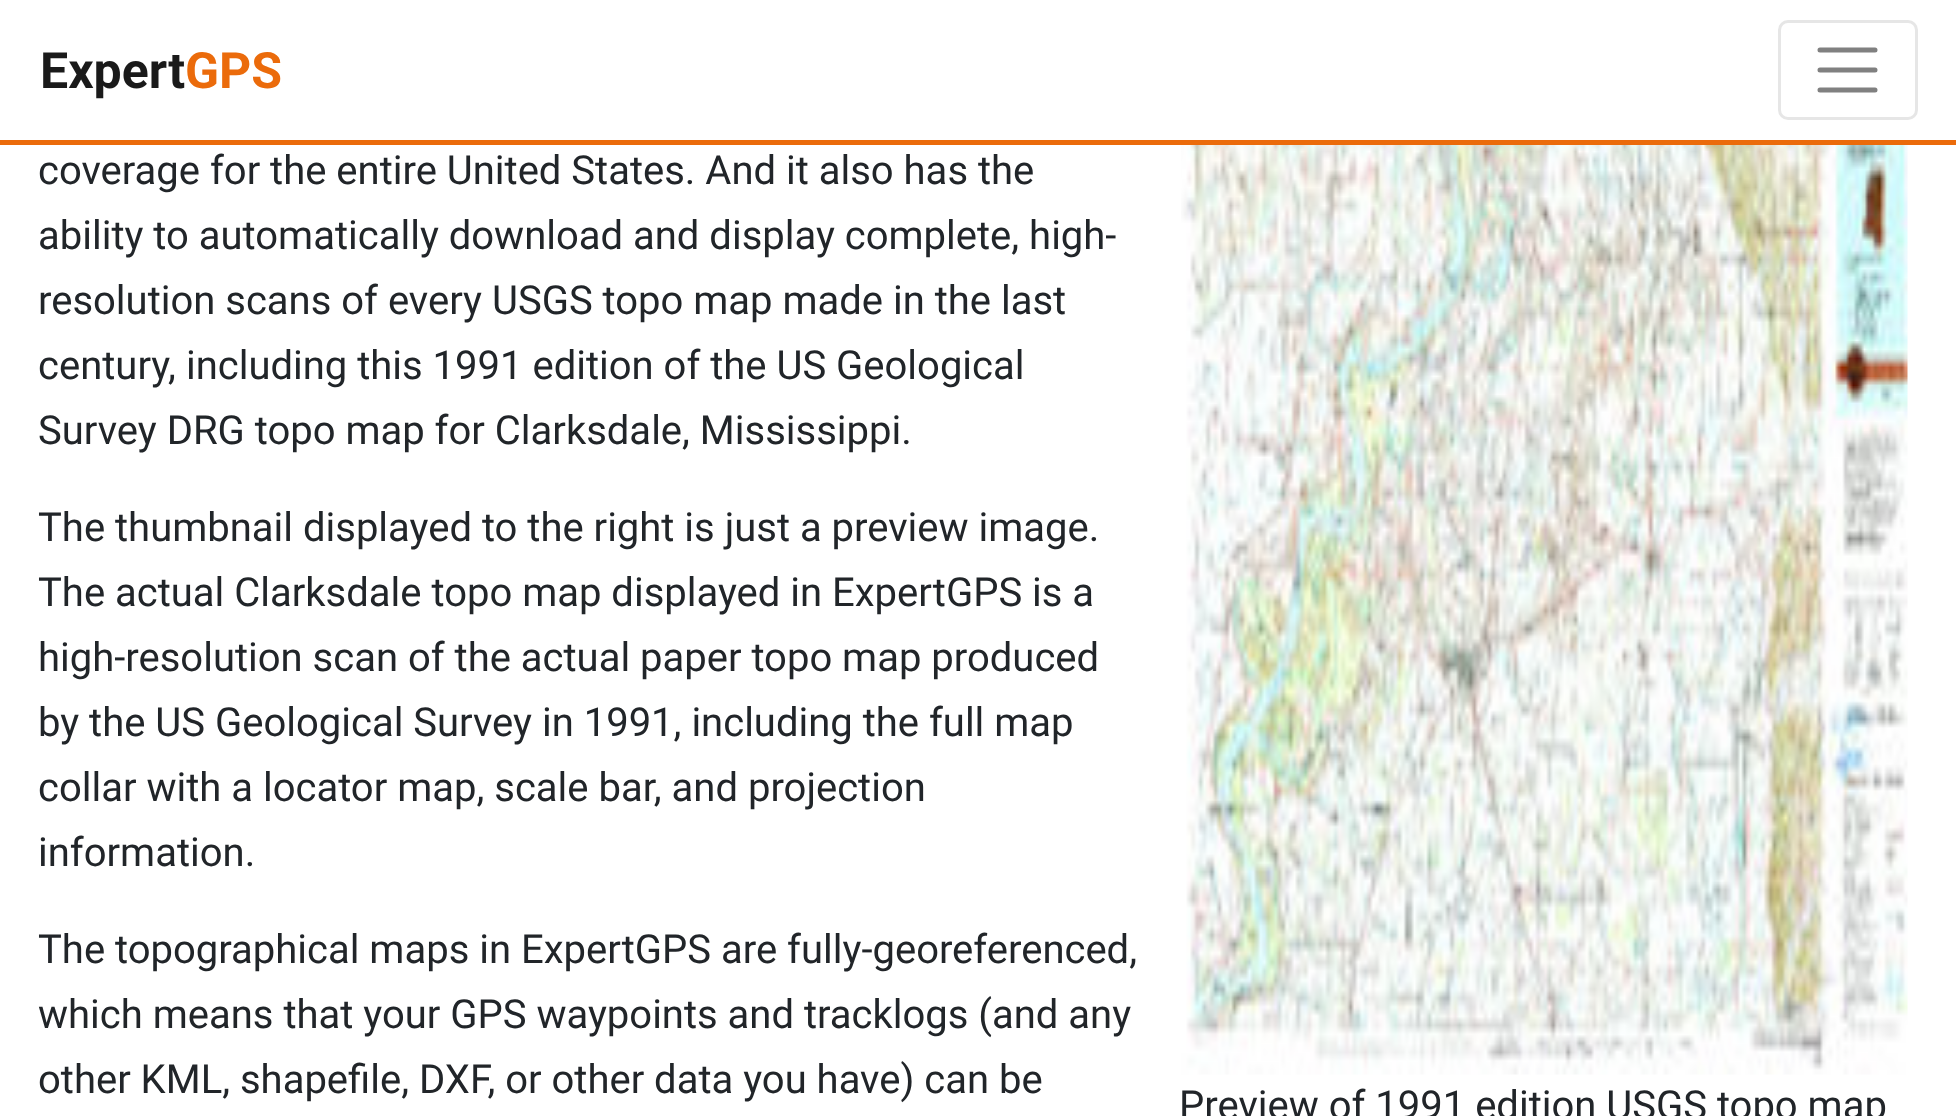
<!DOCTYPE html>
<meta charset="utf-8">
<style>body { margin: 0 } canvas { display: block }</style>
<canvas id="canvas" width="1956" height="1116"></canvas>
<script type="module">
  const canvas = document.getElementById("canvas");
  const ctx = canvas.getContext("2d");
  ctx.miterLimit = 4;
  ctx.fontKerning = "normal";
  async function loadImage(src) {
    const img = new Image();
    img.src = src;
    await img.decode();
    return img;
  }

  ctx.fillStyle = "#ffffff";
  ctx.fillRect(0, 0, 1956, 1116);
  ctx.fillStyle = "#eb6b0b";
  ctx.fillRect(0, 140, 1956, 5);
  ctx.font = "bold 50px Roboto";
  ctx.fillStyle = "#1a1a1a";
  ctx.fillText("Expert", 40, 88);
  ctx.fillStyle = "#eb6b0b";
  ctx.fillText("GPS", 185, 88);
  ctx.beginPath();
  ctx.roundRect(1779.5, 21.5, 137, 97, 8.5);
  ctx.strokeStyle = "#e6e6e6";
  ctx.lineWidth = 3;
  ctx.stroke();
  ctx.beginPath();
  ctx.moveTo(1820, 50);
  ctx.lineTo(1875, 50);
  ctx.moveTo(1820, 70);
  ctx.lineTo(1875, 70);
  ctx.moveTo(1820, 90);
  ctx.lineTo(1875, 90);
  ctx.strokeStyle = "#808080";
  ctx.lineWidth = 5;
  ctx.lineCap = "round";
  ctx.stroke();
  ctx.font = "40px Roboto";
  ctx.fillStyle = "#212529";
  ctx.fillText("coverage for the entire United States. And it also has the", 38, 184);
  ctx.fillText("ability to automatically download and display complete, high-", 38, 249);
  ctx.fillText("resolution scans of every USGS topo map made in the last", 38, 314);
  ctx.fillText("century, including this 1991 edition of the US Geological", 38, 379);
  ctx.fillText("Survey DRG topo map for Clarksdale, Mississippi.", 38, 444);
  ctx.fillText("The thumbnail displayed to the right is just a preview image.", 38, 541);
  ctx.fillText("The actual Clarksdale topo map displayed in ExpertGPS is a", 38, 606);
  ctx.fillText("high-resolution scan of the actual paper topo map produced", 38, 671);
  ctx.fillText("by the US Geological Survey in 1991, including the full map", 38, 736);
  ctx.fillText("collar with a locator map, scale bar, and projection", 38, 801);
  ctx.fillText("information.", 38, 866);
  ctx.fillText("The topographical maps in ExpertGPS are fully-georeferenced,", 38, 963);
  ctx.fillText("which means that your GPS waypoints and tracklogs (and any", 38, 1028);
  ctx.fillText("other KML, shapefile, DXF, or other data you have) can be", 38, 1093);
  ctx.drawImage(await loadImage("img1.png"), 1181, 145, 727, 930);
  ctx.fillText("Preview of 1991 edition USGS topo map", 1179, 1119);
</script>
